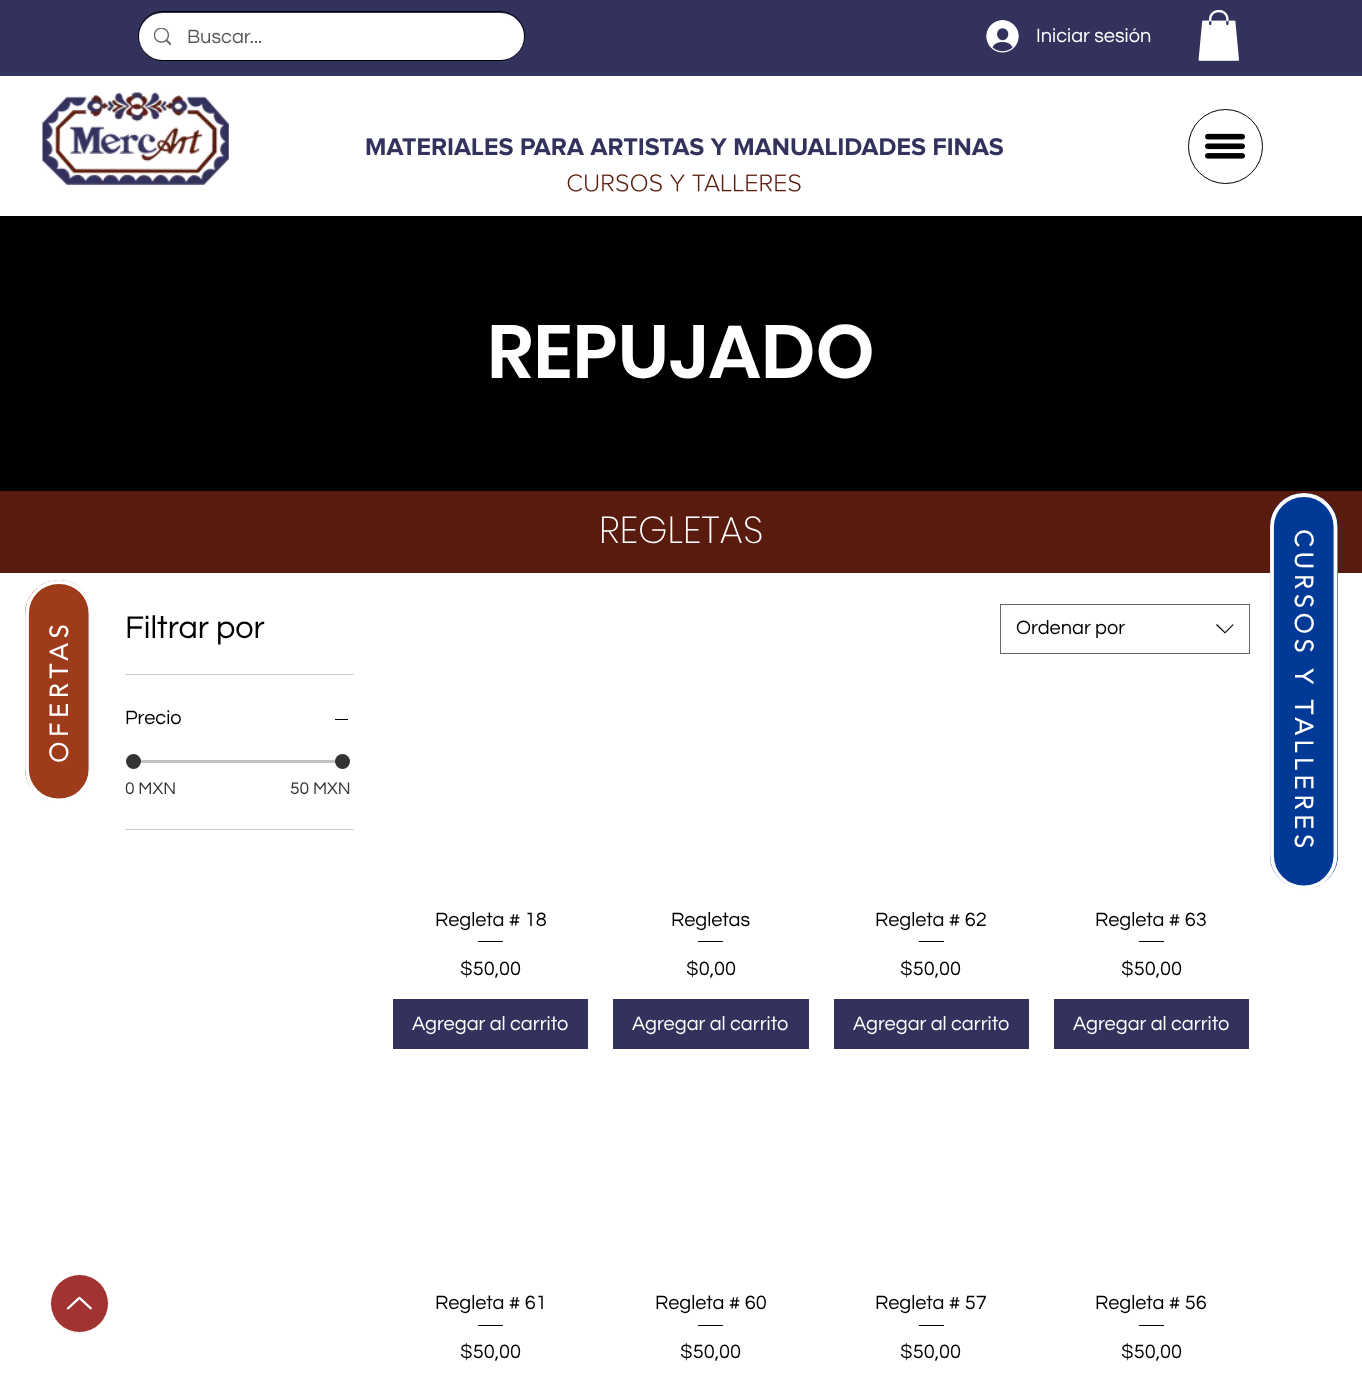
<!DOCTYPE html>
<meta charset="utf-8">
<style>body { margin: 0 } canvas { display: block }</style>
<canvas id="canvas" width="1362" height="1382"></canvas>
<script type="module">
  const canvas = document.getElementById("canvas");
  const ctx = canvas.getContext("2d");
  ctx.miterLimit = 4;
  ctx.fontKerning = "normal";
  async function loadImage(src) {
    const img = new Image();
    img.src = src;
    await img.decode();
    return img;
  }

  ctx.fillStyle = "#ffffff";
  ctx.fillRect(0, 0, 1362, 1382);
  ctx.fillStyle = "#33325c";
  ctx.fillRect(0, 0, 1362, 76);
  ctx.beginPath();
  ctx.roundRect(138.5, 11.5, 386, 49, 24.5);
  ctx.strokeStyle = "#010101";
  ctx.stroke();
  ctx.fillStyle = "#ffffff";
  ctx.beginPath();
  ctx.roundRect(139, 13, 385, 47, 23.5);
  ctx.fill();
  ctx.drawImage(await loadImage("img1.png"), 154, 28, 17, 17);
  ctx.font = "20px Questrial";
  ctx.fillStyle = "#595959";
  ctx.fillText("Buscar...", 187, 43);
  ctx.drawImage(await loadImage("img2.png"), 986, 20, 33, 33);
  ctx.fillStyle = "#ffffff";
  ctx.fillText("Iniciar sesión", 1036, 42);
  ctx.drawImage(await loadImage("img3.png"), 1198, 10, 41, 51);
  ctx.drawImage(await loadImage("img4.png"), 42, 92, 187, 93);
  ctx.drawImage(await loadImage("img5.png"), 366, 138, 637, 18);
  ctx.drawImage(await loadImage("img6.png"), 567, 174, 234, 18);
  ctx.beginPath();
  ctx.arc(1225.5, 146.5, 37, 0, Math.PI * 2);
  ctx.strokeStyle = "#000000";
  ctx.stroke();
  ctx.drawImage(await loadImage("img7.png"), 1205, 133, 40, 26);
  ctx.fillStyle = "#9e3b1b";
  ctx.beginPath();
  ctx.moveTo(25, 769);
  ctx.lineTo(25, 614);
  ctx.bezierCurveTo(25, 595, 40, 580, 59, 580);
  ctx.bezierCurveTo(77, 580, 92, 595, 92, 614);
  ctx.lineTo(92, 769);
  ctx.bezierCurveTo(92, 787, 77, 802, 59, 802);
  ctx.bezierCurveTo(40, 802, 25, 787, 25, 769);
  ctx.closePath();
  ctx.fill();
  ctx.beginPath();
  ctx.moveTo(27, 769);
  ctx.lineTo(27, 614);
  ctx.bezierCurveTo(27, 596, 41, 582, 59, 582);
  ctx.bezierCurveTo(76.5, 582, 90.5, 596, 90.5, 614);
  ctx.lineTo(90.5, 769);
  ctx.bezierCurveTo(90.5, 786.5, 76.5, 800.5, 59, 800.5);
  ctx.bezierCurveTo(41, 800.5, 27, 786.5, 27, 769);
  ctx.closePath();
  ctx.strokeStyle = "#ffffff";
  ctx.lineWidth = 3.8;
  ctx.stroke();
  ctx.letterSpacing = "5px";
  ctx.font = "bold 25px 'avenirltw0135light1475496'";
  ctx.fillStyle = "#ffffff";
  ctx.save();
  ctx.translate(68, 763);
  ctx.rotate(-90 * Math.PI / 180);
  ctx.fillText("OFERTAS", 0, 0);
  ctx.restore();
  ctx.fillStyle = "#000000";
  ctx.fillRect(0, 216, 1362, 275);
  ctx.letterSpacing = "0px";
  ctx.font = "600 75px Poppins";
  ctx.fillStyle = "#ffffff";
  ctx.fillText("REPUJADO", 487, 378);
  ctx.fillStyle = "#591b0d";
  ctx.fillRect(0, 491, 1362, 82);
  ctx.font = "200 37.5px Poppins";
  ctx.fillStyle = "#ffffff";
  ctx.fillText("REGLETAS", 599, 543);
  ctx.fillStyle = "#cccccc";
  ctx.fillRect(125, 674, 229, 1);
  ctx.font = "32.5px Questrial";
  ctx.fillStyle = "#000000";
  ctx.fillText("Filtrar por", 125, 638);
  ctx.fillStyle = "#cccccc";
  ctx.fillRect(125, 829, 229, 1);
  ctx.font = "20px Questrial";
  ctx.fillStyle = "#000000";
  ctx.fillText("Precio", 125, 724);
  ctx.fillRect(335, 719, 13, 1);
  ctx.fillStyle = "#c2c2c2";
  ctx.fillRect(133, 760, 208, 3);
  ctx.fillStyle = "#333333";
  ctx.beginPath();
  ctx.arc(133.5, 761.5, 7.5, 0, Math.PI * 2);
  ctx.fill();
  ctx.beginPath();
  ctx.arc(342.5, 761.5, 7.5, 0, Math.PI * 2);
  ctx.fill();
  ctx.font = "17.5px Questrial";
  ctx.fillText("0 MXN", 125, 794);
  ctx.fillText("50 MXN", 290, 794);
  ctx.strokeStyle = "#666666";
  ctx.lineWidth = 1;
  ctx.strokeRect(1000.5, 604.5, 249, 49);
  ctx.font = "20px Questrial";
  ctx.fillStyle = "#000000";
  ctx.fillText("Ordenar por", 1016, 634);
  ctx.beginPath();
  ctx.moveTo(1233, 624);
  ctx.lineTo(1233.5, 625);
  ctx.lineTo(1225, 633.5);
  ctx.lineTo(1216, 625);
  ctx.lineTo(1217, 624);
  ctx.lineTo(1225, 632);
  ctx.closePath();
  ctx.fill("evenodd");
  ctx.fillText("Regleta # 18", 435, 926);
  ctx.fillRect(478, 941, 25, 1);
  ctx.fillText("$50,00", 460, 975);
  ctx.fillStyle = "#33325c";
  ctx.fillRect(393, 999, 195, 50);
  ctx.fillStyle = "#ffffff";
  ctx.fillText("Agregar al carrito", 412, 1030);
  ctx.fillStyle = "#000000";
  ctx.fillText("Regletas", 671, 926);
  ctx.fillRect(698, 941, 25, 1);
  ctx.fillText("$0,00", 686, 975);
  ctx.fillStyle = "#33325c";
  ctx.fillRect(613, 999, 196, 50);
  ctx.fillStyle = "#ffffff";
  ctx.fillText("Agregar al carrito", 632, 1030);
  ctx.fillStyle = "#000000";
  ctx.fillText("Regleta # 62", 875, 926);
  ctx.fillRect(919, 941, 25, 1);
  ctx.fillText("$50,00", 900, 975);
  ctx.fillStyle = "#33325c";
  ctx.fillRect(834, 999, 195, 50);
  ctx.fillStyle = "#ffffff";
  ctx.fillText("Agregar al carrito", 853, 1030);
  ctx.fillStyle = "#000000";
  ctx.fillText("Regleta # 63", 1095, 926);
  ctx.fillRect(1139, 941, 25, 1);
  ctx.fillText("$50,00", 1121, 975);
  ctx.fillStyle = "#33325c";
  ctx.fillRect(1054, 999, 195, 50);
  ctx.fillStyle = "#ffffff";
  ctx.fillText("Agregar al carrito", 1073, 1030);
  ctx.fillStyle = "#000000";
  ctx.fillText("Regleta # 61", 435, 1309);
  ctx.fillRect(478, 1325, 25, 1);
  ctx.fillText("$50,00", 460, 1358);
  ctx.fillText("Regleta # 60", 655, 1309);
  ctx.fillRect(698, 1325, 25, 1);
  ctx.fillText("$50,00", 680, 1358);
  ctx.fillText("Regleta # 57", 875, 1309);
  ctx.fillRect(919, 1325, 25, 1);
  ctx.fillText("$50,00", 900, 1358);
  ctx.fillText("Regleta # 56", 1095, 1309);
  ctx.fillRect(1139, 1325, 25, 1);
  ctx.fillText("$50,00", 1121, 1358);
  ctx.fillStyle = "#003a96";
  ctx.beginPath();
  ctx.moveTo(1338, 527);
  ctx.lineTo(1338, 856);
  ctx.bezierCurveTo(1338, 874, 1322, 889, 1304, 889);
  ctx.bezierCurveTo(1285, 889, 1270, 874, 1270, 856);
  ctx.lineTo(1270, 527);
  ctx.bezierCurveTo(1270, 508, 1285, 493, 1304, 493);
  ctx.bezierCurveTo(1322, 493, 1338, 508, 1338, 527);
  ctx.closePath();
  ctx.fill();
  ctx.beginPath();
  ctx.moveTo(1335.5, 527);
  ctx.lineTo(1335.5, 855.5);
  ctx.bezierCurveTo(1335.5, 873, 1321.5, 887.5, 1304, 887.5);
  ctx.bezierCurveTo(1286, 887.5, 1272, 873, 1272, 855.5);
  ctx.lineTo(1272, 527);
  ctx.bezierCurveTo(1272, 509.5, 1286, 495, 1304, 495);
  ctx.bezierCurveTo(1321.5, 495, 1335.5, 509.5, 1335.5, 527);
  ctx.closePath();
  ctx.strokeStyle = "#ffffff";
  ctx.lineWidth = 3.8;
  ctx.stroke();
  ctx.letterSpacing = "5px";
  ctx.font = "bold 25px 'avenirltw0135light1475496'";
  ctx.fillStyle = "#ffffff";
  ctx.save();
  ctx.translate(1295, 529);
  ctx.rotate(90 * Math.PI / 180);
  ctx.fillText("CURSOS Y TALLERES", 0, 0);
  ctx.restore();
  ctx.fillStyle = "#a23333";
  ctx.beginPath();
  ctx.arc(79.5, 1303.5, 29, 0, Math.PI * 2);
  ctx.fill();
  ctx.lineWidth = 1;
  ctx.stroke();
  ctx.drawImage(await loadImage("img8.png"), 66, 1296, 26, 14);
</script>
